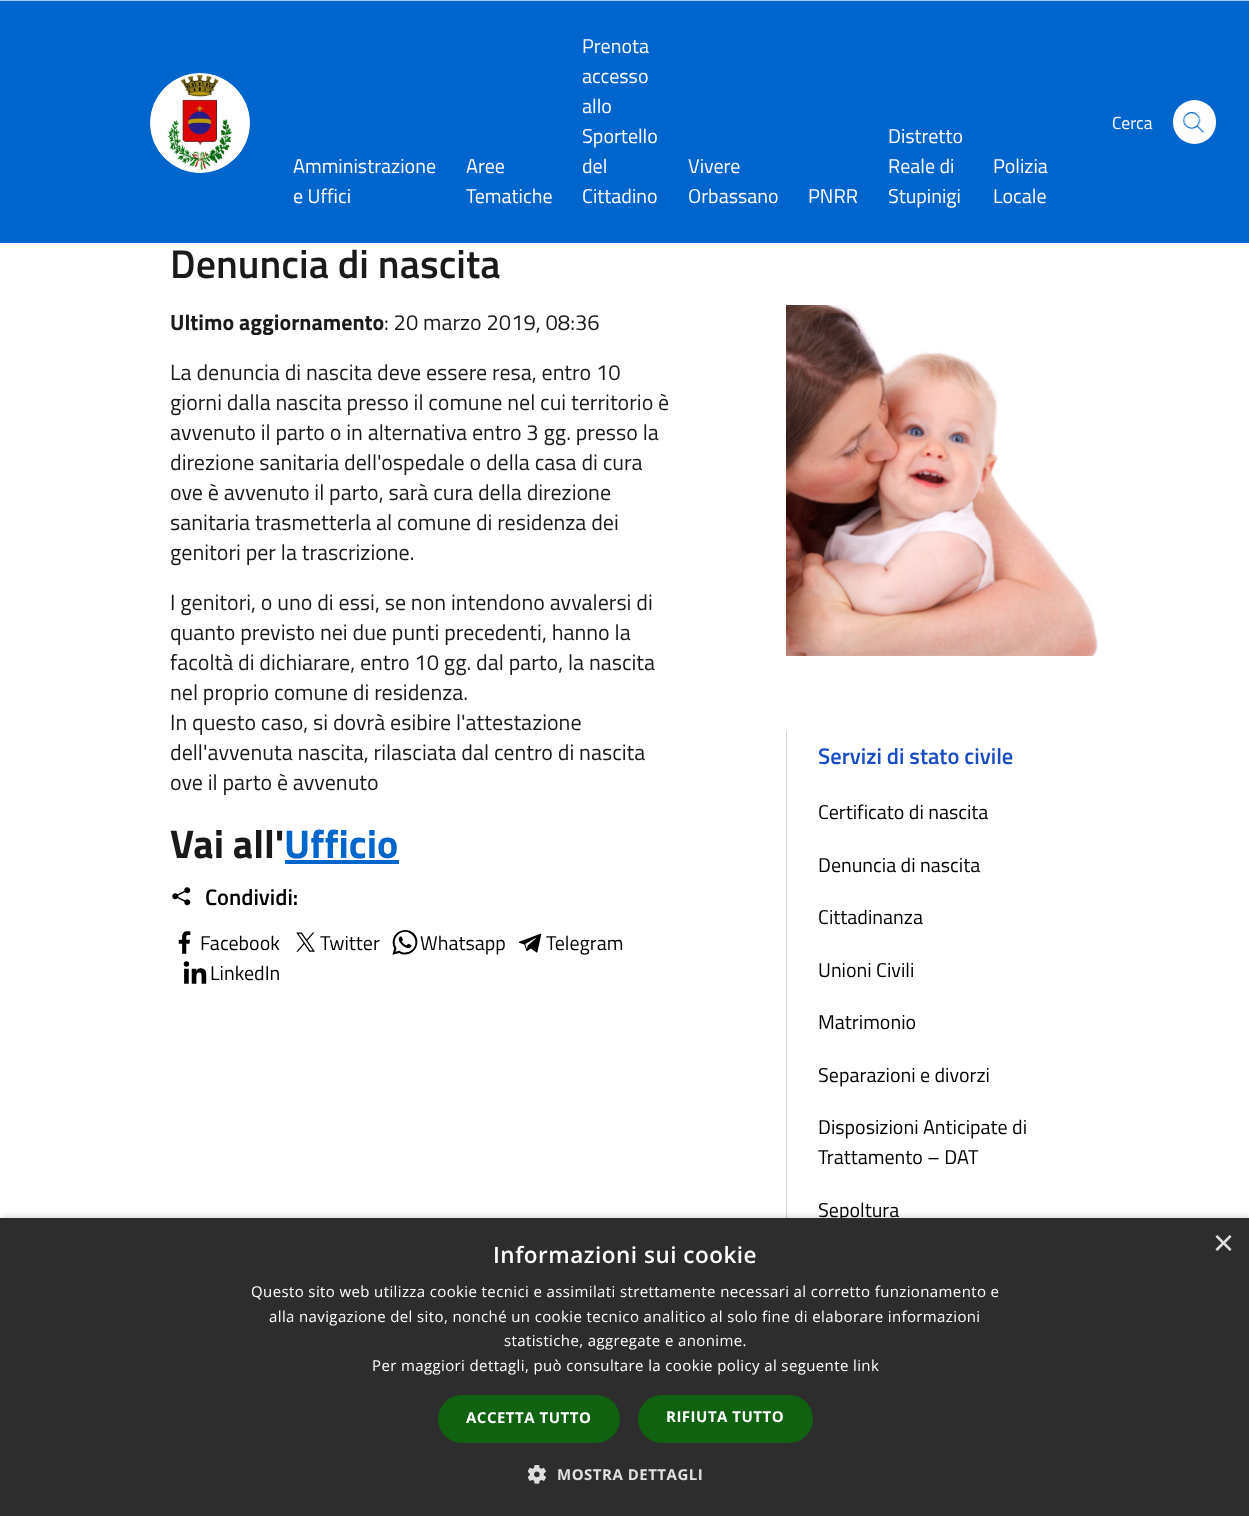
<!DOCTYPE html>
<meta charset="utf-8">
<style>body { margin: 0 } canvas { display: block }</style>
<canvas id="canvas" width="1249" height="1516"></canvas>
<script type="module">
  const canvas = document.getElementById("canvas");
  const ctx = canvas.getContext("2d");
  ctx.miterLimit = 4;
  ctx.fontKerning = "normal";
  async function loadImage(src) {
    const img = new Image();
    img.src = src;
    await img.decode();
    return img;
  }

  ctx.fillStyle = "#ffffff";
  ctx.fillRect(0, 0, 1249, 1516);
  ctx.fillStyle = "#0065cc";
  ctx.fillRect(0, 1, 1249, 242);
  ctx.fillStyle = "#a7c8ff";
  ctx.fillRect(0, 0, 1249, 1);
  ctx.fillStyle = "#ffffff";
  ctx.beginPath();
  ctx.arc(200, 123, 49.5, 0, Math.PI * 2);
  ctx.fill();
  ctx.strokeStyle = "#ffffff";
  ctx.stroke();
  ctx.drawImage(await loadImage("img1.png"), 167, 74, 67, 97);
  ctx.font = "20px Titillium Web";
  ctx.fillText("Amministrazione", 293, 173);
  ctx.fillText("e Uffici", 293, 203);
  ctx.fillText("Aree", 466, 173);
  ctx.fillText("Tematiche", 466, 203);
  ctx.fillText("Prenota", 582, 53);
  ctx.fillText("accesso", 582, 83);
  ctx.fillText("allo", 582, 113);
  ctx.fillText("Sportello", 582, 143);
  ctx.fillText("del", 582, 173);
  ctx.fillText("Cittadino", 582, 203);
  ctx.fillText("Vivere", 688, 173);
  ctx.fillText("Orbassano", 688, 203);
  ctx.fillText("PNRR", 808, 203);
  ctx.fillText("Distretto", 888, 143);
  ctx.fillText("Reale di", 888, 173);
  ctx.fillText("Stupinigi", 888, 203);
  ctx.fillText("Polizia", 993, 173);
  ctx.fillText("Locale", 993, 203);
  ctx.font = "17.5px Titillium Web";
  ctx.fillText("Cerca", 1112, 129);
  ctx.beginPath();
  ctx.roundRect(1173, 100, 43, 44, 21.5);
  ctx.fill();
  ctx.drawImage(await loadImage("img2.png"), 1183, 112, 22, 21);
  ctx.font = "600 40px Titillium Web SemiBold";
  ctx.fillStyle = "#1a1a1a";
  ctx.fillText("Denuncia di nascita", 170, 278);
  ctx.font = "bold 22px Titillium Web";
  ctx.fillText("Ultimo aggiornamento", 170, 330);
  ctx.font = "22px Titillium Web";
  ctx.fillText(": 20 marzo 2019, 08:36", 384, 330);
  ctx.fillText("La denuncia di nascita deve essere resa, entro 10", 170, 380);
  ctx.fillText("giorni dalla nascita presso il comune nel cui territorio è", 170, 410);
  ctx.fillText("avvenuto il parto o in alternativa entro 3 gg. presso la", 170, 440);
  ctx.fillText("direzione sanitaria dell'ospedale o della casa di cura", 170, 470);
  ctx.fillText("ove è avvenuto il parto, sarà cura della direzione", 170, 500);
  ctx.fillText("sanitaria trasmetterla al comune di residenza dei", 170, 530);
  ctx.fillText("genitori per la trascrizione.", 170, 560);
  ctx.fillText("I genitori, o uno di essi, se non intendono avvalersi di", 170, 610);
  ctx.fillText("quanto previsto nei due punti precedenti, hanno la", 170, 640);
  ctx.fillText("facoltà di dichiarare, entro 10 gg. dal parto, la nascita", 170, 670);
  ctx.fillText("nel proprio comune di residenza.", 170, 700);
  ctx.fillText("In questo caso, si dovrà esibire l'attestazione", 170, 730);
  ctx.fillText("dell'avvenuta nascita, rilasciata dal centro di nascita", 170, 760);
  ctx.fillText("ove il parto è avvenuto", 170, 790);
  ctx.font = "bold 40px Titillium Web";
  ctx.fillText("Vai all'", 170, 858);
  ctx.fillStyle = "#0066cc";
  ctx.fillText("Ufficio", 284, 858);
  ctx.fillRect(285, 860, 114, 4);
  ctx.drawImage(await loadImage("img3.png"), 172, 887, 19, 19);
  ctx.font = "600 22.5px Titillium Web SemiBold";
  ctx.fillStyle = "#000000";
  ctx.fillText("Condividi:", 205, 905);
  ctx.drawImage(await loadImage("img4.png"), 178, 931, 13, 23);
  ctx.font = "20px Titillium Web";
  ctx.fillText("Facebook", 200, 950);
  ctx.drawImage(await loadImage("img5.png"), 296, 932, 19, 20);
  ctx.fillText("Twitter", 320, 950);
  ctx.drawImage(await loadImage("img6.png"), 392, 930, 26, 25);
  ctx.fillText("Whatsapp", 420, 950);
  ctx.drawImage(await loadImage("img7.png"), 518, 933, 24, 20);
  ctx.fillText("Telegram", 546, 950);
  ctx.drawImage(await loadImage("img8.png"), 183, 961, 24, 23);
  ctx.fillText("LinkedIn", 210, 980);
  ctx.drawImage(await loadImage("img9.png"), 786, 305, 312, 351);
  ctx.fillStyle = "#d3d3d3";
  ctx.fillRect(786, 731, 1, 487);
  ctx.font = "600 22.5px Titillium Web SemiBold";
  ctx.fillStyle = "#194dc3";
  ctx.fillText("Servizi di stato civile", 818, 764);
  ctx.font = "20px Titillium Web";
  ctx.fillStyle = "#000000";
  ctx.fillText("Certificato di nascita", 818, 819);
  ctx.fillText("Denuncia di nascita", 818, 872);
  ctx.fillText("Cittadinanza", 818, 924);
  ctx.fillText("Unioni Civili", 818, 977);
  ctx.fillText("Matrimonio", 818, 1029);
  ctx.fillText("Separazioni e divorzi", 818, 1082);
  ctx.fillText("Disposizioni Anticipate di", 818, 1134);
  ctx.fillText("Trattamento – DAT", 818, 1164);
  ctx.fillText("Sepoltura", 818, 1217);
  ctx.fillStyle = "rgba(0, 0, 0, 0.35)";
  ctx.filter = "blur(5px)";
  ctx.beginPath();
  ctx.rect(1, 1220, 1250, 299);
  ctx.fill();
  ctx.filter = "none";
  ctx.fillStyle = "#2d2d2d";
  ctx.fillRect(0, 1218, 1249, 298);
  ctx.font = "36px Liberation Sans";
  ctx.fillStyle = "#e0e0e0";
  ctx.fillText("×", 1213, 1255);
  ctx.letterSpacing = "0.5px";
  ctx.font = "600 22.5px Open Sans";
  ctx.fillStyle = "#ffffff";
  ctx.fillText("Informazioni sui cookie", 493, 1263);
  ctx.letterSpacing = "0.38px";
  ctx.font = "15px Open Sans";
  ctx.fillText("Questo sito web utilizza cookie tecnici e assimilati strettamente necessari al corretto funzionamento e", 251, 1297);
  ctx.fillText("alla navigazione del sito, nonché un cookie tecnico analitico al solo fine di elaborare informazioni", 269, 1322);
  ctx.fillText("statistiche, aggregate e anonime.", 504, 1346);
  ctx.fillText("Per maggiori dettagli, può consultare la cookie policy al seguente link", 372, 1371);
  ctx.fillStyle = "#106110";
  ctx.beginPath();
  ctx.roundRect(438, 1395, 182, 48, 24);
  ctx.fill();
  ctx.letterSpacing = "0.5px";
  ctx.font = "bold 15px Open Sans";
  ctx.fillStyle = "#ffffff";
  ctx.fillText("ACCETTA TUTTO", 466, 1423);
  ctx.fillStyle = "#106110";
  ctx.beginPath();
  ctx.roundRect(638, 1395, 175, 48, 24);
  ctx.fill();
  ctx.fillStyle = "#ffffff";
  ctx.fillText("RIFIUTA TUTTO", 666, 1422);
  ctx.drawImage(await loadImage("img10.png"), 528, 1465, 18, 19);
  ctx.fillStyle = "#e0e0e0";
  ctx.fillText("MOSTRA DETTAGLI", 557, 1480);
</script>
